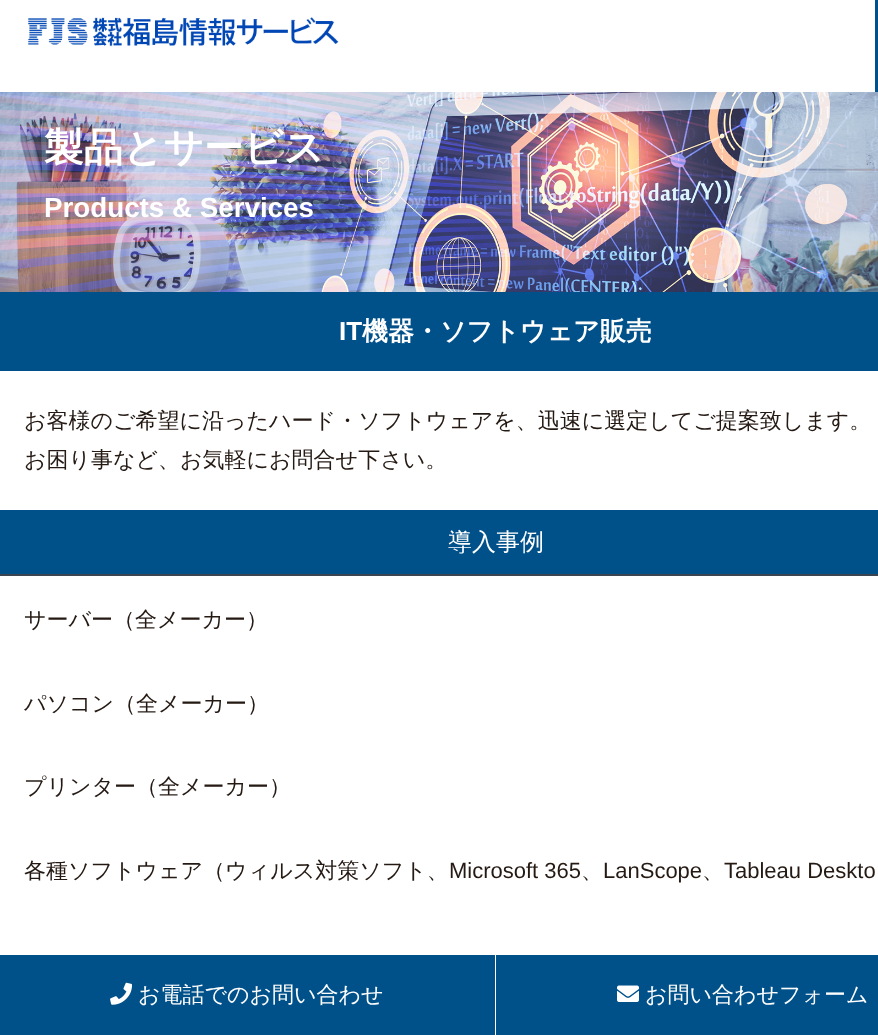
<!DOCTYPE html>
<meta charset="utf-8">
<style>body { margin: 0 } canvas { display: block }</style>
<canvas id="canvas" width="878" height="1035"></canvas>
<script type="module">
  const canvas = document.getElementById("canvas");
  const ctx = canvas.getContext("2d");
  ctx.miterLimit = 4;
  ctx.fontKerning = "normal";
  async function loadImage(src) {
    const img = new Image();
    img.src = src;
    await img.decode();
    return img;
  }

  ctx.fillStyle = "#ffffff";
  ctx.fillRect(0, 0, 878, 1035);
  ctx.drawImage(await loadImage("img1.png"), 28, 17, 311, 30);
  ctx.fillStyle = "#00518a";
  ctx.fillRect(875, 0, 3, 92);
  ctx.drawImage(await loadImage("img2.png"), 0, 92, 878, 200);
  ctx.font = "bold 39.5px WenQuanYi Zen Hei";
  ctx.fillStyle = "#ffffff";
  ctx.fillText("製品とサービス", 44, 161);
  ctx.font = "bold 27.75px Liberation Sans";
  ctx.fillText("Products & Services", 44, 217);
  ctx.fillStyle = "#00518a";
  ctx.fillRect(0, 292, 878, 79);
  ctx.font = "bold 26px Liberation Sans";
  ctx.fillStyle = "#ffffff";
  ctx.fillText("IT", 339, 340);
  ctx.font = "bold 26px WenQuanYi Zen Hei";
  ctx.fillText("機器・ソフトウェア販売", 362, 340);
  ctx.font = "500 22px WenQuanYi Zen Hei";
  ctx.fillStyle = "#241913";
  ctx.fillText("お客様のご希望に沿ったハード・ソフトウェアを、迅速に選定してご提案致します。", 24, 428);
  ctx.fillText("お困り事など、お気軽にお問合せ下さい。", 24, 467);
  ctx.fillStyle = "#00518a";
  ctx.fillRect(0, 510, 878, 64);
  ctx.fillStyle = "#3b4552";
  ctx.fillRect(0, 574, 878, 2);
  ctx.font = "500 24px WenQuanYi Zen Hei";
  ctx.fillStyle = "#ffffff";
  ctx.fillText("導入事例", 448, 550);
  ctx.font = "500 22px WenQuanYi Zen Hei";
  ctx.fillStyle = "#241913";
  ctx.fillText("サーバー（全メーカー）", 24, 627);
  ctx.fillText("パソコン（全メーカー）", 24, 711);
  ctx.fillText("プリンター（全メーカー）", 24, 794);
  ctx.fillText("各種ソフトウェア（ウィルス対策ソフト、", 24, 878);
  ctx.font = "22px Liberation Sans";
  ctx.fillText("Microsoft 365", 449, 878);
  ctx.font = "500 22px WenQuanYi Zen Hei";
  ctx.fillText("、", 581, 878);
  ctx.font = "22px Liberation Sans";
  ctx.fillText("LanScope", 603, 878);
  ctx.font = "500 22px WenQuanYi Zen Hei";
  ctx.fillText("、", 702, 878);
  ctx.font = "22px Liberation Sans";
  ctx.fillText("Tableau Deskto", 724, 878);
  ctx.fillStyle = "#00518a";
  ctx.fillRect(0, 955, 495, 80);
  ctx.drawImage(await loadImage("img3.png"), 110, 982, 22, 23);
  ctx.font = "500 22px WenQuanYi Zen Hei";
  ctx.fillStyle = "#ffffff";
  ctx.fillText("お電話でのお問い合わせ", 138, 1002);
  ctx.fillStyle = "#00518a";
  ctx.fillRect(496, 955, 382, 80);
  ctx.drawImage(await loadImage("img4.png"), 617, 985, 22, 17);
  ctx.fillStyle = "#ffffff";
  ctx.fillText("お問い合わせフォーム", 645, 1002);
</script>
